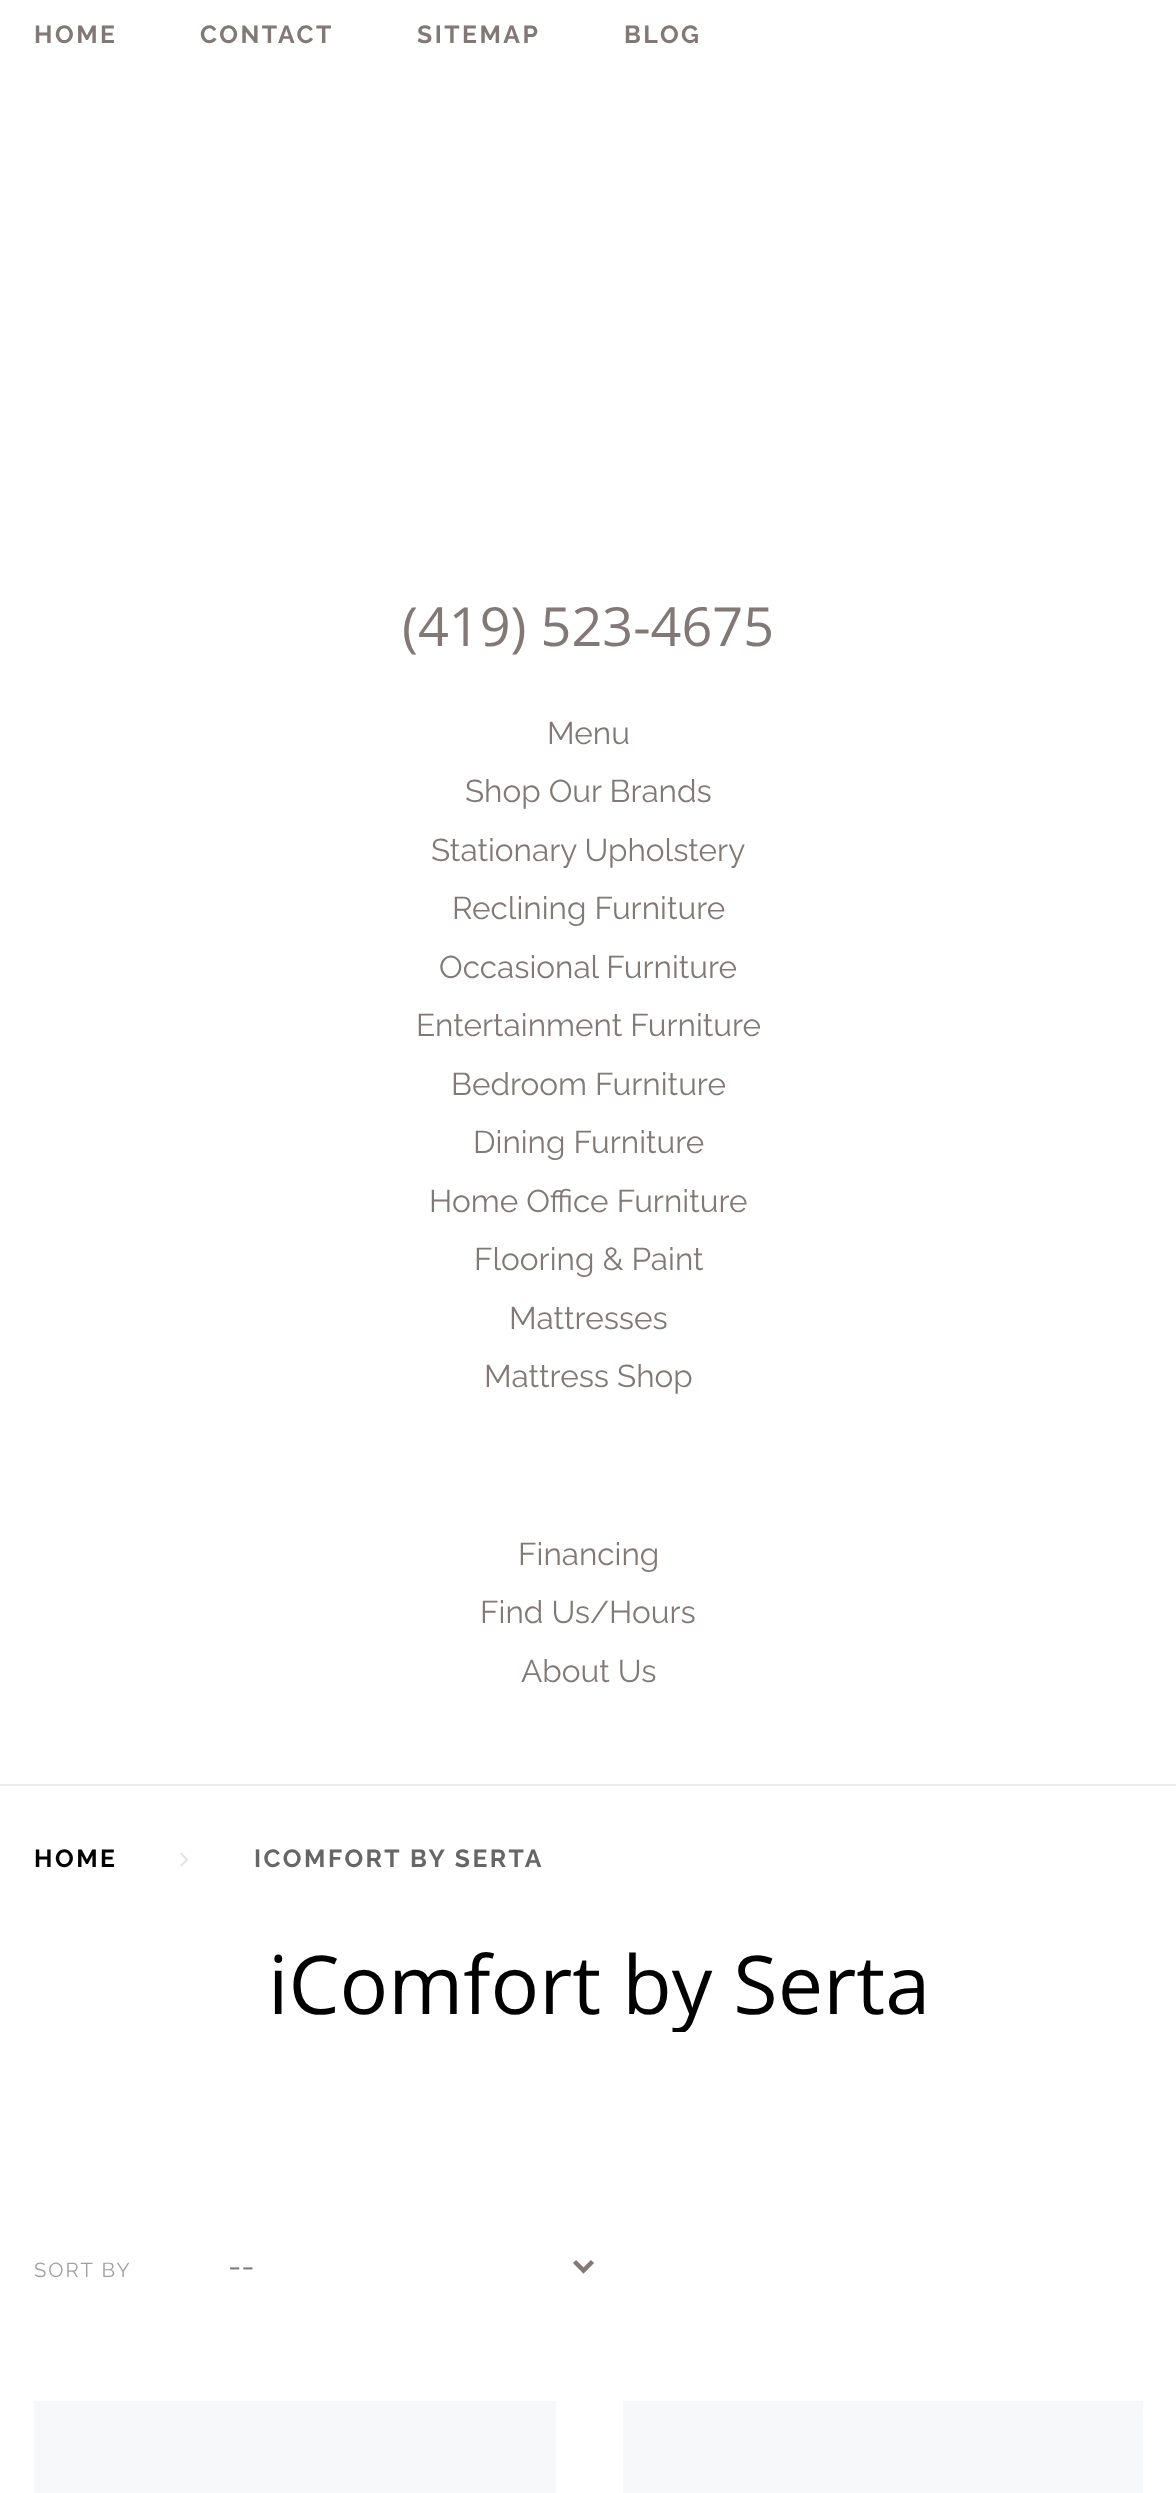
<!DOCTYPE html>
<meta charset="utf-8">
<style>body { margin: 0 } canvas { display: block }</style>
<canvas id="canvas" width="1176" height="2493"></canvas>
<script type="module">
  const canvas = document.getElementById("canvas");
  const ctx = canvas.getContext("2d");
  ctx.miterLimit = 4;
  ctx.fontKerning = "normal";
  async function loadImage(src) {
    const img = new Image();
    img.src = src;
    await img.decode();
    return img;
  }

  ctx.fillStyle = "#ffffff";
  ctx.fillRect(0, 0, 1176, 2493);
  ctx.fillStyle = "#ebebeb";
  ctx.fillRect(0, 1784, 1176, 2);
  ctx.letterSpacing = "2.5px";
  ctx.font = "bold 24.75px Raleway";
  ctx.fillStyle = "#827976";
  ctx.fillText("HOME", 34, 43);
  ctx.fillText("CONTACT", 200, 43);
  ctx.fillText("SITEMAP", 417, 43);
  ctx.fillText("BLOG", 624, 43);
  ctx.letterSpacing = "0px";
  ctx.font = "54px Open Sans";
  ctx.fillText("(419) 523-4675", 402, 646);
  ctx.font = "31.5px Raleway";
  ctx.fillText("Menu", 547, 744);
  ctx.fillText("Shop Our Brands", 465, 802);
  ctx.fillText("Stationary Upholstery", 431, 861);
  ctx.fillText("Reclining Furniture", 452, 919);
  ctx.fillText("Occasional Furniture", 439, 978);
  ctx.fillText("Entertainment Furniture", 416, 1036);
  ctx.fillText("Bedroom Furniture", 451, 1095);
  ctx.fillText("Dining Furniture", 473, 1153);
  ctx.fillText("Home Office Furniture", 429, 1212);
  ctx.fillText("Flooring & Paint", 474, 1270);
  ctx.fillText("Mattresses", 509, 1329);
  ctx.fillText("Mattress Shop", 484, 1387);
  ctx.fillText("Financing", 518, 1565);
  ctx.fillText("Find Us/Hours", 480, 1623);
  ctx.fillText("About Us", 521, 1682);
  ctx.letterSpacing = "2.5px";
  ctx.font = "bold 24.75px Raleway";
  ctx.fillStyle = "#000000";
  ctx.fillText("HOME", 34, 1867);
  ctx.drawImage(await loadImage("img1.png"), 180, 1852, 8, 15);
  ctx.fillStyle = "#666666";
  ctx.fillText("ICOMFORT BY SERTA", 254, 1867);
  ctx.save();
  ctx.beginPath();
  ctx.rect(34, 1935, 1109, 97);
  ctx.clip();
  ctx.letterSpacing = "0px";
  ctx.font = "81px Open Sans";
  ctx.fillStyle = "#000000";
  ctx.fillText("iComfort by Serta", 268, 2014);
  ctx.restore();
  ctx.letterSpacing = "2px";
  ctx.font = "20.25px Raleway";
  ctx.fillStyle = "#a1a1a1";
  ctx.fillText("SORT BY", 34, 2277);
  ctx.beginPath();
  ctx.moveTo(574.5, 2261.5);
  ctx.lineTo(583.5, 2270.5);
  ctx.lineTo(592.5, 2261.5);
  ctx.strokeStyle = "#827976";
  ctx.lineWidth = 4.5;
  ctx.stroke();
  ctx.letterSpacing = "0px";
  ctx.font = "31.5px Raleway";
  ctx.fillStyle = "#827976";
  ctx.fillText("--", 228, 2277);
  ctx.fillStyle = "#f6f8f9";
  ctx.fillRect(34, 2401, 522, 92);
  ctx.fillRect(623, 2401, 520, 92);
</script>
